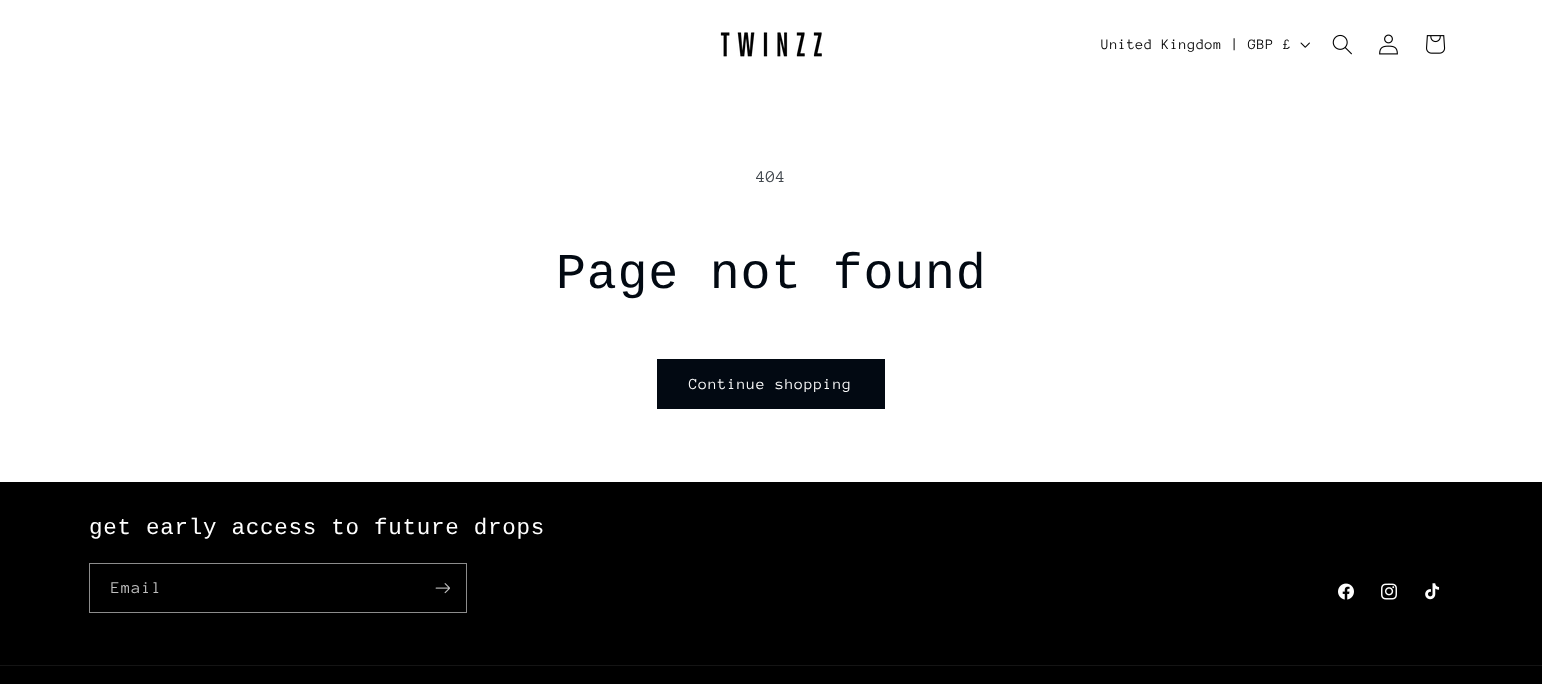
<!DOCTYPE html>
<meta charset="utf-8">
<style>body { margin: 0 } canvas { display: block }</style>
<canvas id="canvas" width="1542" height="684"></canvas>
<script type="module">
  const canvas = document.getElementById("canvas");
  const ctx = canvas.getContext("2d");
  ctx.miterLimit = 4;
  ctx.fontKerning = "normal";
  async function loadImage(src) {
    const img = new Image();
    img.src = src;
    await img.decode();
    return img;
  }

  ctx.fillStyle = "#ffffff";
  ctx.fillRect(0, 0, 1542, 684);
  ctx.drawImage(await loadImage("img1.png"), 720, 32, 102, 25);
  ctx.letterSpacing = "0.6px";
  ctx.font = "14.75px Anonymous Pro";
  ctx.fillStyle = "#000000";
  ctx.fillText("United Kingdom | GBP £", 1101, 49);
  ctx.drawImage(await loadImage("img2.png"), 1300, 42, 10, 6);
  ctx.drawImage(await loadImage("img3.png"), 1332, 34, 20, 21);
  ctx.drawImage(await loadImage("img4.png"), 1379, 34, 19, 21);
  ctx.drawImage(await loadImage("img5.png"), 1426, 35, 20, 19);
  ctx.font = "17px Anonymous Pro";
  ctx.fillStyle = "#41474d";
  ctx.fillText("404", 756, 182);
  ctx.letterSpacing = "0.75px";
  ctx.font = "50px Liberation Mono";
  ctx.fillStyle = "#020912";
  ctx.fillText("Page not found", 556, 288);
  ctx.fillRect(657, 359, 228, 50);
  ctx.letterSpacing = "1px";
  ctx.font = "15.75px Anonymous Pro";
  ctx.fillStyle = "#ffffff";
  ctx.fillText("Continue shopping", 689, 389);
  ctx.fillStyle = "#000000";
  ctx.fillRect(0, 482, 1542, 202);
  ctx.letterSpacing = "0.75px";
  ctx.font = "22.5px Liberation Mono";
  ctx.fillStyle = "#ffffff";
  ctx.fillText("get early access to future drops", 89, 534);
  ctx.strokeStyle = "#8c8c8c";
  ctx.strokeRect(89.5, 563.5, 377, 49);
  ctx.letterSpacing = "1px";
  ctx.font = "17px Anonymous Pro";
  ctx.fillStyle = "#bfbfbf";
  ctx.fillText("Email", 111, 593);
  ctx.drawImage(await loadImage("img6.png"), 435, 583, 15, 11);
  ctx.drawImage(await loadImage("img7.png"), 1338, 583, 16, 17);
  ctx.drawImage(await loadImage("img8.png"), 1381, 583, 16, 17);
  ctx.drawImage(await loadImage("img9.png"), 1425, 583, 15, 17);
  ctx.fillStyle = "#141414";
  ctx.fillRect(0, 665, 1542, 1);
</script>
